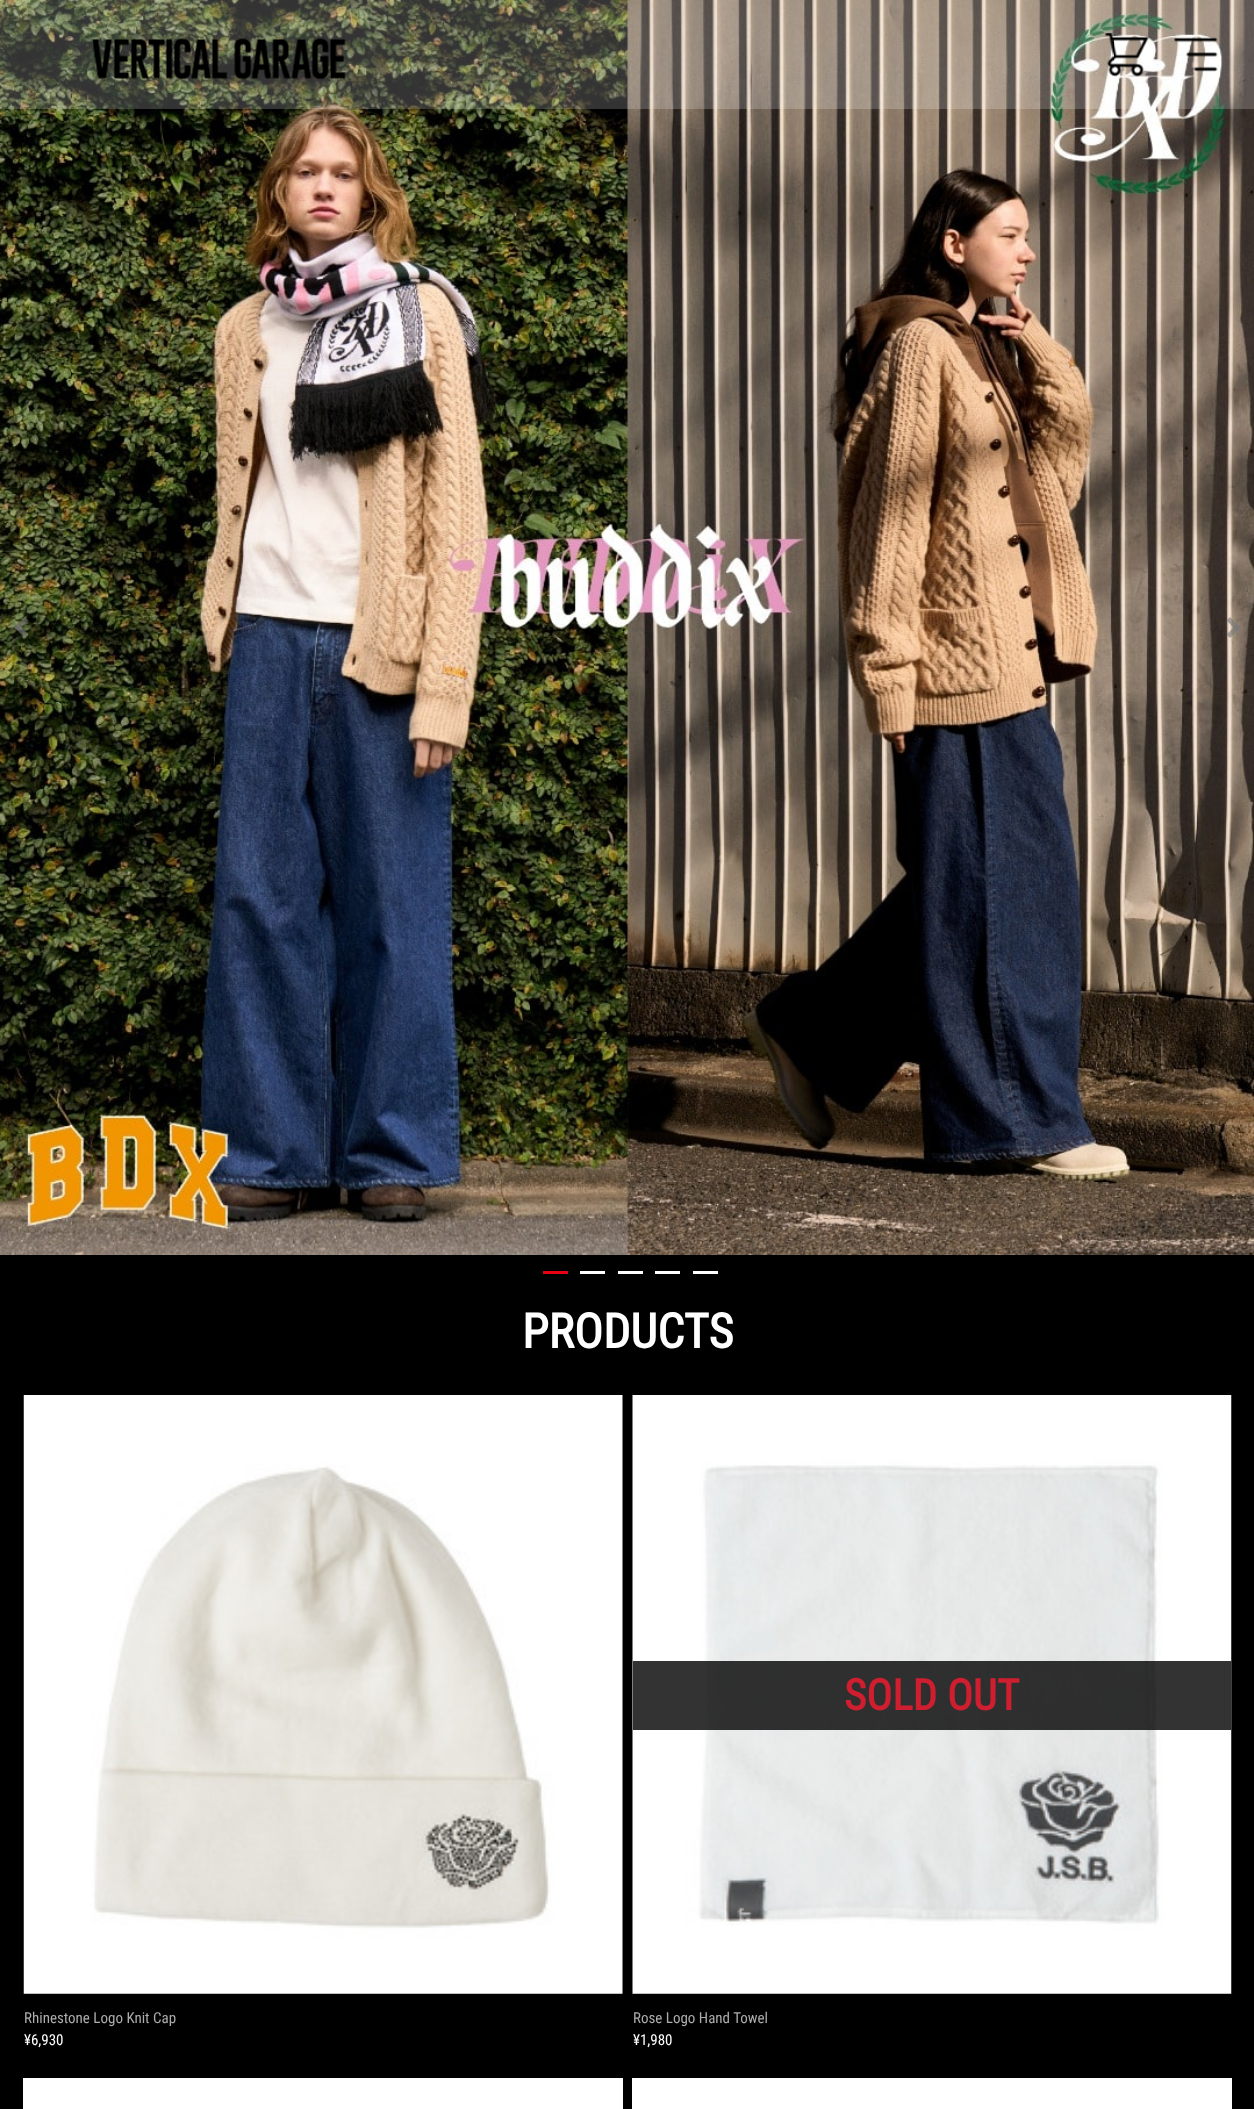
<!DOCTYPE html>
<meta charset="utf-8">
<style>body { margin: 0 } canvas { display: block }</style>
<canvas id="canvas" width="1254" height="2109"></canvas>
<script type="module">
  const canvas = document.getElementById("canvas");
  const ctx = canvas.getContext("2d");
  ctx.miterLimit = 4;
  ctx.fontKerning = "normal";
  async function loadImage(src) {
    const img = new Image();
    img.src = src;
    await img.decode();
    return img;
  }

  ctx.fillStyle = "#000000";
  ctx.fillRect(0, 0, 1254, 2109);
  ctx.drawImage(await loadImage("img4.png"), 0, 0, 1254, 1255);
  ctx.fillStyle = "rgba(255, 255, 255, 0.2)";
  ctx.fillRect(0, 0, 1254, 109);
  ctx.drawImage(await loadImage("img1.png"), 93, 38, 253, 42);
  ctx.drawImage(await loadImage("img2.png"), 1104, 33, 45, 44);
  ctx.drawImage(await loadImage("img3.png"), 1174, 37, 44, 35);
  ctx.fillStyle = "rgba(119, 119, 119, 0.6)";
  ctx.beginPath();
  ctx.moveTo(25, 638);
  ctx.lineTo(14.5, 627.5);
  ctx.lineTo(18, 624);
  ctx.lineTo(28.5, 634.5);
  ctx.closePath();
  ctx.fill();
  ctx.beginPath();
  ctx.moveTo(18, 631);
  ctx.lineTo(14.5, 627.5);
  ctx.lineTo(25, 617);
  ctx.lineTo(28.5, 620.5);
  ctx.closePath();
  ctx.fill();
  ctx.beginPath();
  ctx.moveTo(1230, 617);
  ctx.lineTo(1240.5, 627.5);
  ctx.lineTo(1237, 631);
  ctx.lineTo(1226.5, 620.5);
  ctx.closePath();
  ctx.fill();
  ctx.beginPath();
  ctx.moveTo(1237, 624);
  ctx.lineTo(1240.5, 627.5);
  ctx.lineTo(1230, 638);
  ctx.lineTo(1226.5, 634.5);
  ctx.closePath();
  ctx.fill();
  ctx.fillStyle = "#e80113";
  ctx.fillRect(543, 1271, 25, 3);
  ctx.fillStyle = "#ffffff";
  ctx.fillRect(580, 1271, 25, 3);
  ctx.fillRect(618, 1271, 25, 3);
  ctx.fillRect(655, 1271, 25, 3);
  ctx.fillRect(693, 1271, 25, 3);
  ctx.font = "bold 48px Roboto Condensed";
  ctx.fillText("PRODUCTS", 522, 1348);
  ctx.drawImage(await loadImage("img5.png"), 23, 1395, 600, 599);
  ctx.font = "15px Roboto Condensed";
  ctx.fillStyle = "#acacac";
  ctx.fillText("Rhinestone Logo Knit Cap", 24, 2023);
  ctx.fillStyle = "#ffffff";
  ctx.fillText("¥6,930", 24, 2045);
  ctx.drawImage(await loadImage("img6.png"), 632, 1395, 600, 599);
  ctx.fillStyle = "rgba(0, 0, 0, 0.8)";
  ctx.fillRect(633, 1661, 598, 69);
  ctx.font = "bold 43px Roboto Condensed";
  ctx.fillStyle = "#cf1e2f";
  ctx.fillText("SOLD OUT", 844, 1710);
  ctx.font = "15px Roboto Condensed";
  ctx.fillStyle = "#acacac";
  ctx.fillText("Rose Logo Hand Towel", 633, 2023);
  ctx.fillStyle = "#ffffff";
  ctx.fillText("¥1,980", 633, 2045);
  ctx.fillRect(23, 2078, 600, 31);
  ctx.fillRect(632, 2078, 600, 31);
</script>
